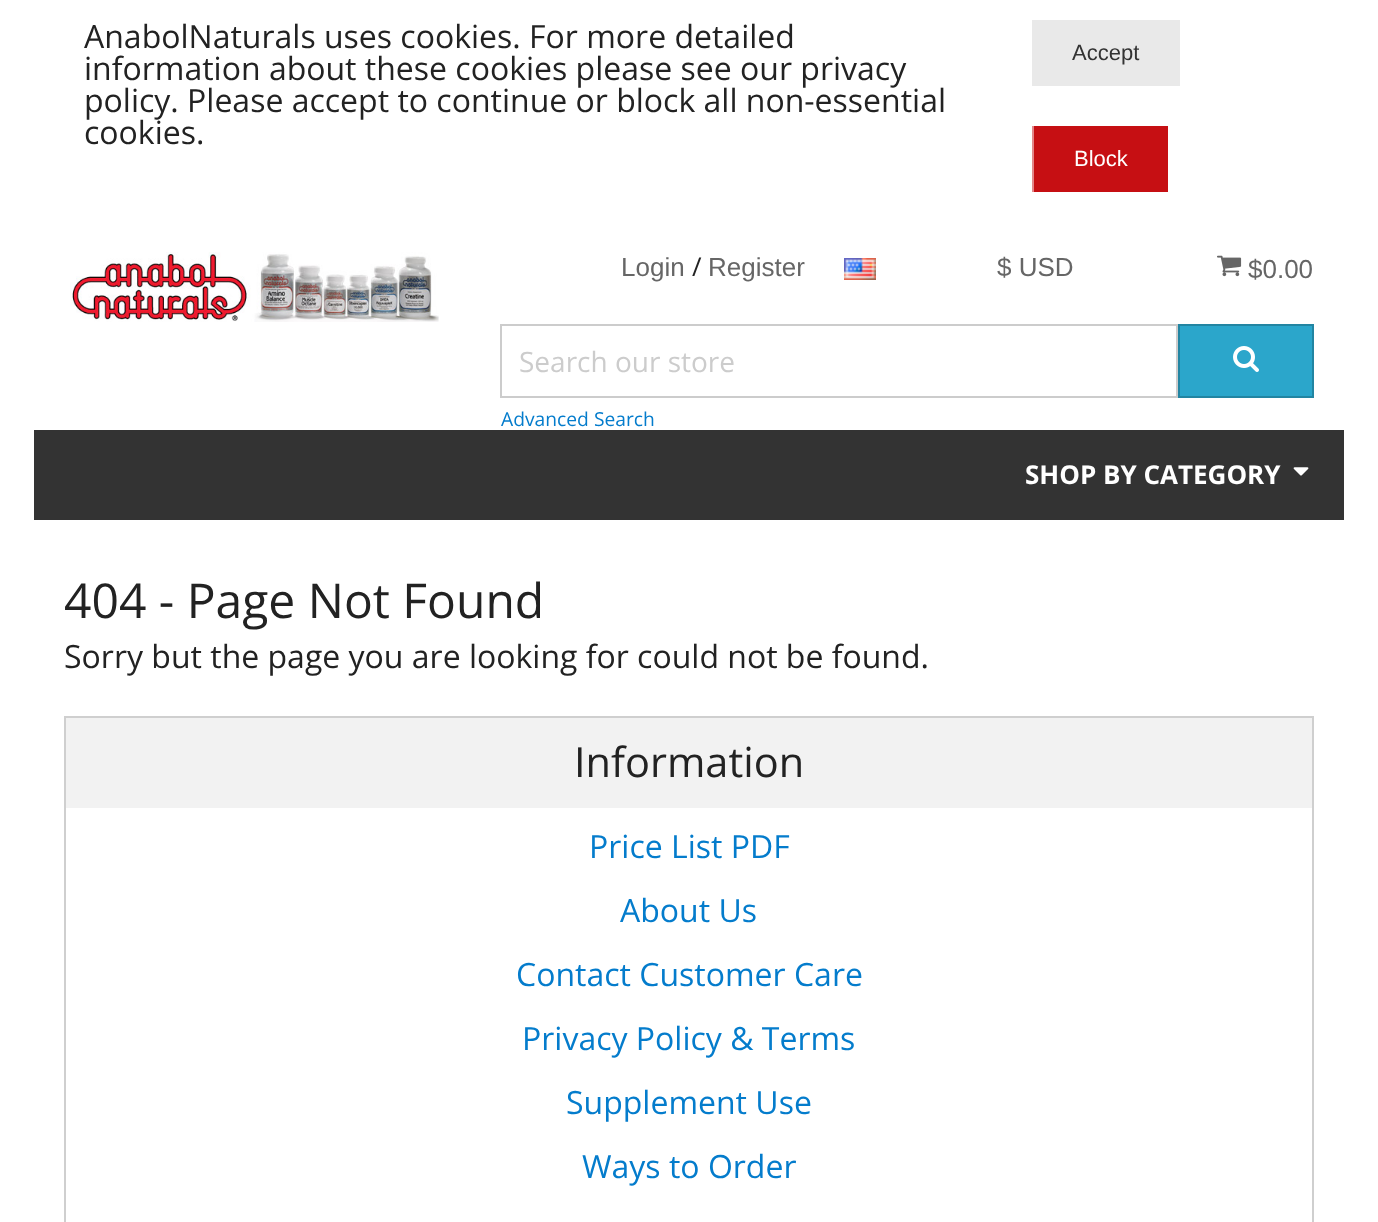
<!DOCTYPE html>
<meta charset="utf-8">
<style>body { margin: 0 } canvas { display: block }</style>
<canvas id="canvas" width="1378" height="1222"></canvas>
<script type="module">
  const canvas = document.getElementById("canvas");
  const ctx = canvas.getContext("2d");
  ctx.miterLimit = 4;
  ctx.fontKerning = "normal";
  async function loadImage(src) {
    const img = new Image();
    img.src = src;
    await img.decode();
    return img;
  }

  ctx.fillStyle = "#ffffff";
  ctx.fillRect(0, 0, 1378, 1222);
  ctx.font = "32px Open Sans";
  ctx.fillStyle = "#222222";
  ctx.fillText("AnabolNaturals uses cookies. For more detailed", 84, 48);
  ctx.fillText("information about these cookies please see our privacy", 84, 80);
  ctx.fillText("policy. Please accept to continue or block all non-essential", 84, 112);
  ctx.fillText("cookies.", 84, 144);
  ctx.fillStyle = "#e9e9e9";
  ctx.fillRect(1032, 20, 148, 66);
  ctx.font = "22px Liberation Sans";
  ctx.fillStyle = "#333333";
  ctx.fillText("Accept", 1072, 60);
  ctx.fillStyle = "#c60f13";
  ctx.fillRect(1034, 126, 134, 66);
  ctx.fillStyle = "#e38789";
  ctx.fillRect(1032, 126, 2, 66);
  ctx.fillStyle = "#ffffff";
  ctx.fillText("Block", 1074, 166);
  ctx.drawImage(await loadImage("img1.png"), 70, 252, 369, 70);
  ctx.font = "26px Liberation Sans";
  ctx.fillStyle = "#666666";
  ctx.fillText("Login", 621, 276);
  ctx.font = "26px Open Sans";
  ctx.fillStyle = "#222222";
  ctx.fillText("/", 692, 276);
  ctx.font = "26px Liberation Sans";
  ctx.fillStyle = "#666666";
  ctx.fillText("Register", 708, 276);
  ctx.drawImage(await loadImage("img2.png"), 844, 258, 32, 22);
  ctx.fillText("$ USD", 997, 276);
  ctx.drawImage(await loadImage("img3.png"), 1217, 255, 25, 22);
  ctx.fillText("$0.00", 1248, 278);
  ctx.strokeStyle = "#cccccc";
  ctx.lineWidth = 2;
  ctx.strokeRect(501, 325, 676, 72);
  ctx.font = "28px Open Sans";
  ctx.fillStyle = "#cccccc";
  ctx.fillText("Search our store", 519, 372);
  ctx.font = "19.25px Open Sans";
  ctx.fillStyle = "#047ccc";
  ctx.fillText("Advanced Search", 501, 426);
  ctx.fillStyle = "#2ba6cb";
  ctx.beginPath();
  ctx.rect(1179, 325, 134, 72);
  ctx.fill();
  ctx.strokeStyle = "#2285a2";
  ctx.stroke();
  ctx.drawImage(await loadImage("img4.png"), 1233, 346, 26, 26);
  ctx.fillStyle = "#333333";
  ctx.fillRect(34, 430, 1310, 90);
  ctx.font = "bold 26px Open Sans";
  ctx.fillStyle = "#ffffff";
  ctx.fillText("SHOP BY CATEGORY", 1025, 484);
  ctx.drawImage(await loadImage("img5.png"), 1293, 467, 16, 9);
  ctx.font = "48px Open Sans";
  ctx.fillStyle = "#222222";
  ctx.fillText("404 - Page Not Found", 64, 618);
  ctx.font = "32px Open Sans";
  ctx.fillText("Sorry but the page you are looking for could not be found.", 64, 668);
  ctx.strokeStyle = "#cfcfcf";
  ctx.strokeRect(65, 717, 1248, 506);
  ctx.fillStyle = "#f2f2f2";
  ctx.fillRect(66, 718, 1246, 90);
  ctx.font = "41.5px Open Sans";
  ctx.fillStyle = "#222222";
  ctx.fillText("Information", 574, 777);
  ctx.font = "32px Open Sans";
  ctx.fillStyle = "#047ccc";
  ctx.fillText("Price List PDF", 589, 858);
  ctx.fillText("About Us", 620, 922);
  ctx.fillText("Contact Customer Care", 516, 986);
  ctx.fillText("Privacy Policy & Terms", 522, 1050);
  ctx.fillText("Supplement Use", 566, 1114);
  ctx.fillText("Ways to Order", 582, 1178);
</script>
